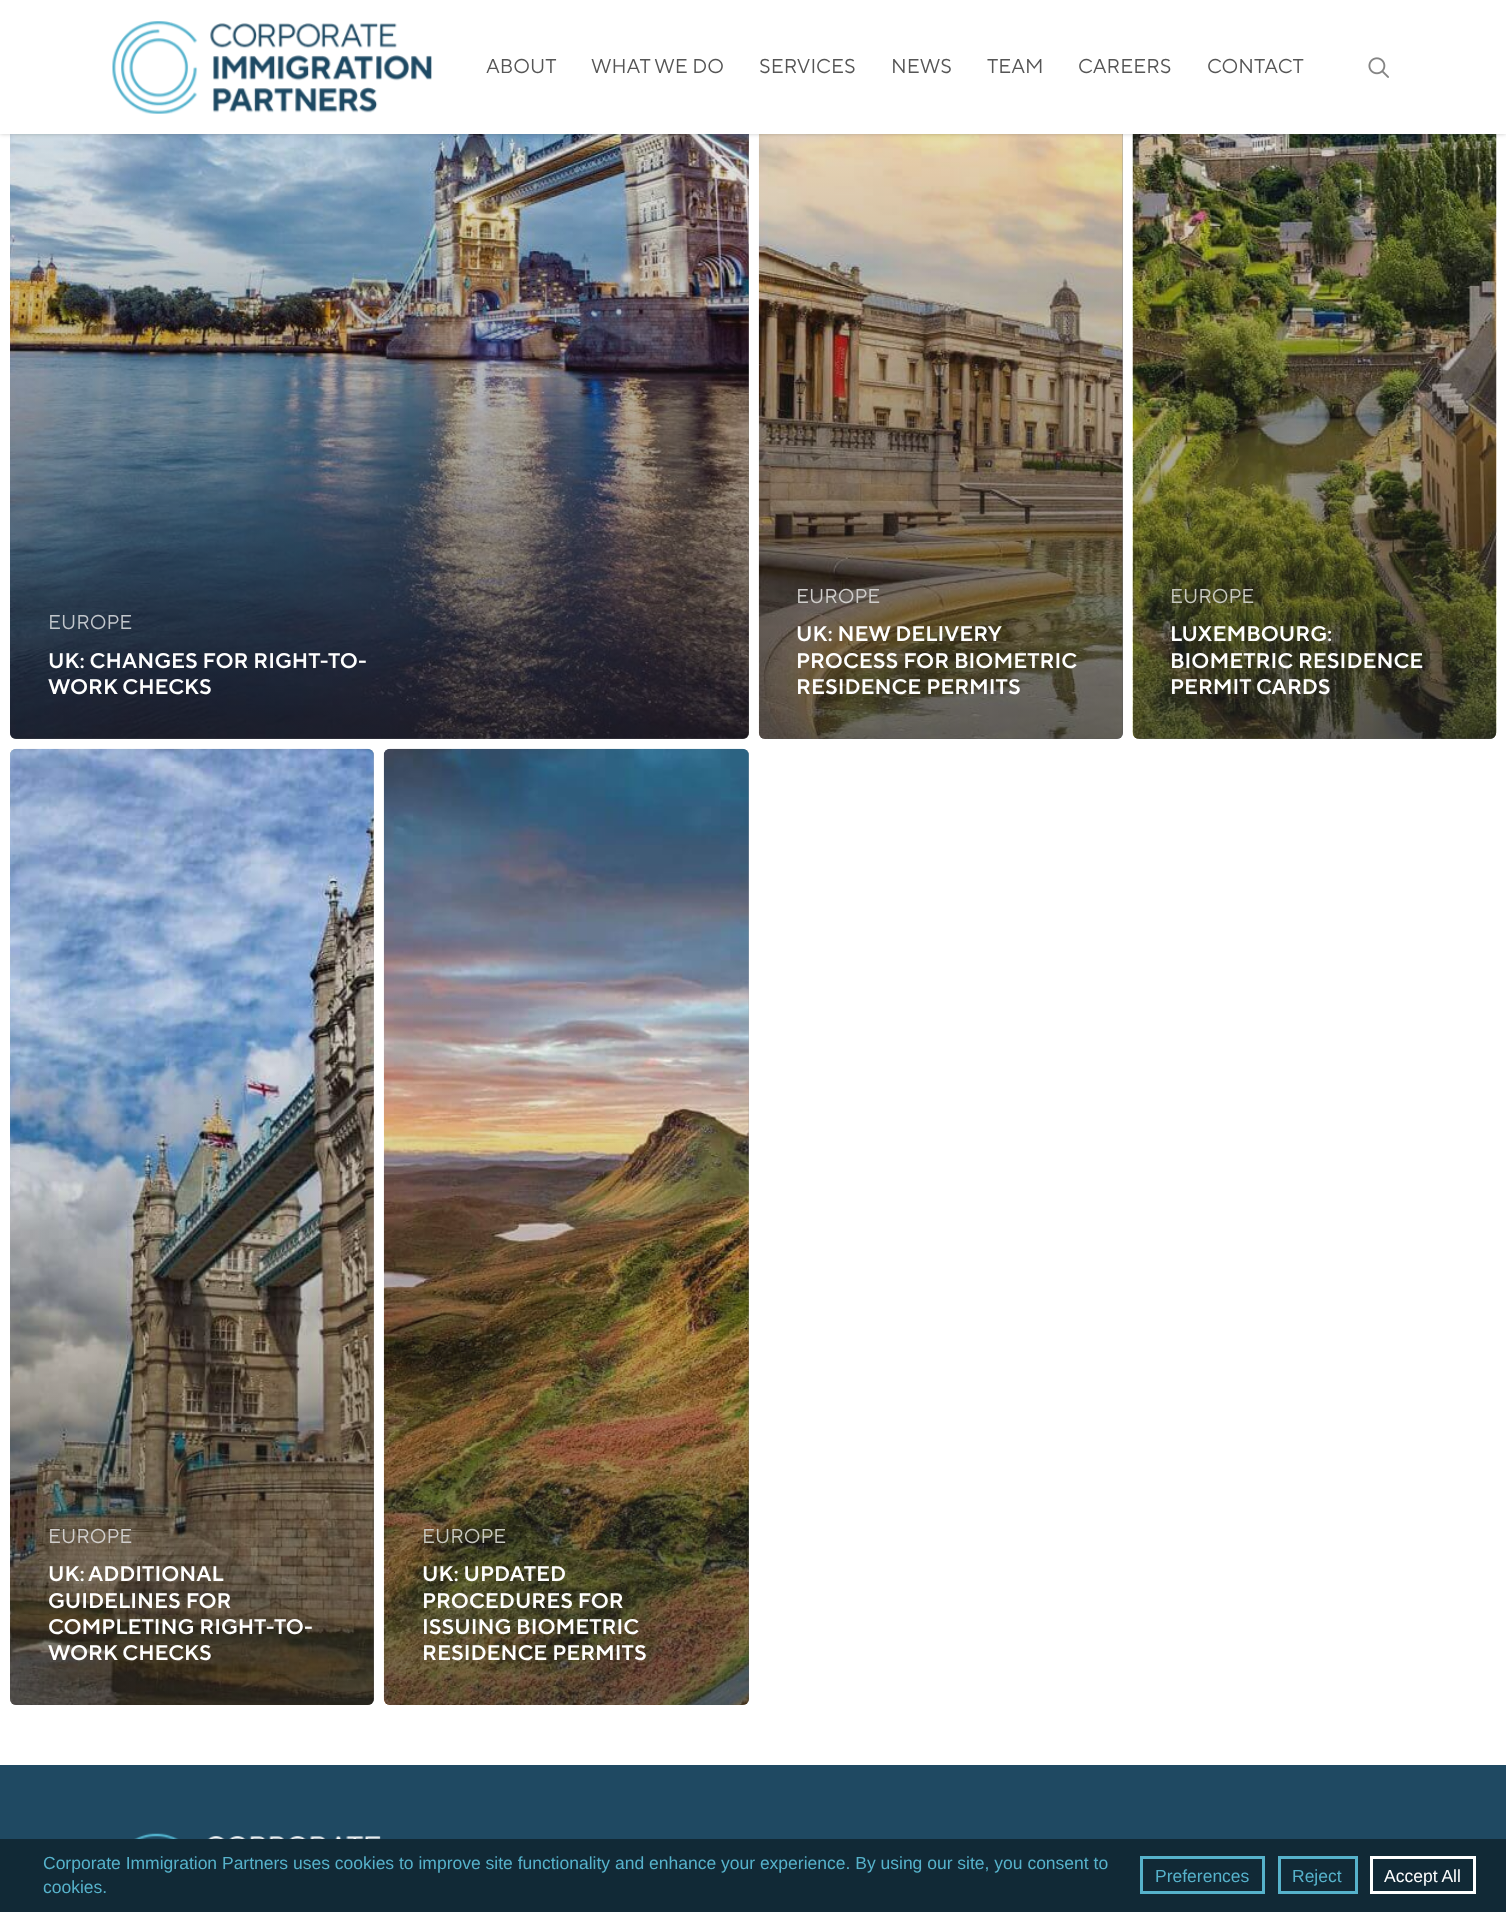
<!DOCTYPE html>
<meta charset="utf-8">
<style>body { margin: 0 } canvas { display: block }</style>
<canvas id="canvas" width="1506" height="1912"></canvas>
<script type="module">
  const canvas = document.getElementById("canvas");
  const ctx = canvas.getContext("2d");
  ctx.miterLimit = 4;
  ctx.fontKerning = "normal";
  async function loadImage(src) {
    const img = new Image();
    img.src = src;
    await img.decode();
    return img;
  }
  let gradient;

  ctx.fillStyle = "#ffffff";
  ctx.fillRect(0, 0, 1506, 1912);
  ctx.fillStyle = "#b3b3b3";
  ctx.beginPath();
  ctx.roundRect(10, -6, 739, 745, 6);
  ctx.fill();
  ctx.drawImage(await loadImage("img3.png"), 10, 134, 739, 605);
  gradient = ctx.createLinearGradient(381, 22, 381, 744);
  gradient.addColorStop(0, "rgba(35, 35, 35, 0)");
  gradient.addColorStop(1, "rgba(35, 35, 35, 0.65)");
  ctx.fillStyle = gradient;
  ctx.beginPath();
  ctx.roundRect(10, 23, 739, 716, [0, 0, 6, 6]);
  ctx.fill();
  ctx.fillStyle = "#b3b3b3";
  ctx.beginPath();
  ctx.roundRect(759, -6, 364, 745, 6);
  ctx.fill();
  ctx.drawImage(await loadImage("img4.png"), 758, 134, 365, 605);
  gradient = ctx.createLinearGradient(941, 23, 941, 744);
  gradient.addColorStop(0, "rgba(35, 35, 35, 0)");
  gradient.addColorStop(1, "rgba(35, 35, 35, 0.65)");
  ctx.fillStyle = gradient;
  ctx.beginPath();
  ctx.roundRect(759, 23, 364, 716, [0, 0, 6, 6]);
  ctx.fill();
  ctx.fillStyle = "#b3b3b3";
  ctx.beginPath();
  ctx.roundRect(1133, -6, 363, 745, 6);
  ctx.fill();
  ctx.drawImage(await loadImage("img5.png"), 1132, 134, 365, 605);
  gradient = ctx.createLinearGradient(1315, 23, 1315, 744);
  gradient.addColorStop(0, "rgba(35, 35, 35, 0)");
  gradient.addColorStop(1, "rgba(35, 35, 35, 0.65)");
  ctx.fillStyle = gradient;
  ctx.beginPath();
  ctx.roundRect(1133, 23, 363, 716, [0, 0, 6, 6]);
  ctx.fill();
  ctx.fillStyle = "rgba(0, 0, 0, 0.22)";
  ctx.filter = "blur(2px)";
  ctx.beginPath();
  ctx.rect(0, 0, 1506, 134);
  ctx.fill();
  ctx.filter = "none";
  ctx.fillStyle = "#ffffff";
  ctx.fillRect(0, 0, 1506, 134);
  ctx.drawImage(await loadImage("img1.png"), 112, 21, 320, 93);
  ctx.font = "20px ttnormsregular";
  ctx.fillStyle = "#555555";
  ctx.fillText("ABOUT", 486, 73);
  ctx.fillText("WHAT WE DO", 591, 73);
  ctx.fillText("SERVICES", 759, 73);
  ctx.fillText("NEWS", 891, 73);
  ctx.fillText("TEAM", 987, 73);
  ctx.fillText("CAREERS", 1078, 73);
  ctx.fillText("CONTACT", 1207, 73);
  ctx.drawImage(await loadImage("img2.png"), 1368, 57, 21, 21);
  ctx.fillStyle = "#c2c7cc";
  ctx.fillText("EUROPE", 48, 629);
  ctx.font = "600 21.25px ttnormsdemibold";
  ctx.fillStyle = "#ffffff";
  ctx.fillText("UK: CHANGES FOR RIGHT-TO-", 48, 668);
  ctx.fillText("WORK CHECKS", 48, 694);
  ctx.font = "20px ttnormsregular";
  ctx.fillStyle = "#d0cecc";
  ctx.fillText("EUROPE", 796, 603);
  ctx.font = "600 21.25px ttnormsdemibold";
  ctx.fillStyle = "#ffffff";
  ctx.fillText("UK: NEW DELIVERY", 796, 641);
  ctx.fillText("PROCESS FOR BIOMETRIC", 796, 668);
  ctx.fillText("RESIDENCE PERMITS", 796, 694);
  ctx.font = "20px ttnormsregular";
  ctx.fillStyle = "#c9cac1";
  ctx.fillText("EUROPE", 1170, 603);
  ctx.font = "600 21.25px ttnormsdemibold";
  ctx.fillStyle = "#ffffff";
  ctx.fillText("LUXEMBOURG:", 1170, 641);
  ctx.fillText("BIOMETRIC RESIDENCE", 1170, 668);
  ctx.fillText("PERMIT CARDS", 1170, 694);
  ctx.fillStyle = "#b3b3b3";
  ctx.beginPath();
  ctx.roundRect(10, 749, 364, 956, 6);
  ctx.fill();
  ctx.drawImage(await loadImage("img6.png"), 10, 748, 364, 957);
  gradient = ctx.createLinearGradient(193, 989, 193, 1710);
  gradient.addColorStop(0, "rgba(35, 35, 35, 0)");
  gradient.addColorStop(1, "rgba(35, 35, 35, 0.65)");
  ctx.fillStyle = gradient;
  ctx.beginPath();
  ctx.roundRect(10, 989, 364, 716, [0, 0, 6, 6]);
  ctx.fill();
  ctx.font = "20px ttnormsregular";
  ctx.fillStyle = "#d0cecc";
  ctx.fillText("EUROPE", 48, 1543);
  ctx.wordSpacing = "-1px";
  ctx.font = "600 21.25px ttnormsdemibold";
  ctx.fillStyle = "#ffffff";
  ctx.fillText("UK: ADDITIONAL", 48, 1581);
  ctx.wordSpacing = "0px";
  ctx.fillText("GUIDELINES FOR", 48, 1608);
  ctx.fillText("COMPLETING RIGHT-TO-", 48, 1634);
  ctx.fillText("WORK CHECKS", 48, 1660);
  ctx.fillStyle = "#b3b3b3";
  ctx.beginPath();
  ctx.roundRect(384, 749, 365, 956, 6);
  ctx.fill();
  ctx.drawImage(await loadImage("img7.png"), 383, 748, 366, 957);
  gradient = ctx.createLinearGradient(567, 989, 567, 1710);
  gradient.addColorStop(0, "rgba(35, 35, 35, 0)");
  gradient.addColorStop(1, "rgba(35, 35, 35, 0.65)");
  ctx.fillStyle = gradient;
  ctx.beginPath();
  ctx.roundRect(384, 989, 365, 716, [0, 0, 6, 6]);
  ctx.fill();
  ctx.font = "20px ttnormsregular";
  ctx.fillStyle = "#c9cac1";
  ctx.fillText("EUROPE", 422, 1543);
  ctx.font = "600 21.25px ttnormsdemibold";
  ctx.fillStyle = "#ffffff";
  ctx.fillText("UK: UPDATED", 422, 1581);
  ctx.fillText("PROCEDURES FOR", 422, 1608);
  ctx.fillText("ISSUING BIOMETRIC", 422, 1634);
  ctx.fillText("RESIDENCE PERMITS", 422, 1660);
  ctx.fillStyle = "#1f4962";
  ctx.fillRect(0, 1765, 1506, 74);
  ctx.drawImage(await loadImage("img8.png"), 134, 1833, 247, 6);
  ctx.fillStyle = "#112936";
  ctx.fillRect(0, 1839, 1506, 73);
  ctx.font = "17.5px Liberation Sans";
  ctx.fillStyle = "#56b2cb";
  ctx.fillText("Corporate Immigration Partners uses cookies to improve site functionality and enhance your experience. By using our site, you consent to", 43, 1869);
  ctx.fillText("cookies.", 43, 1893);
  ctx.strokeStyle = "#56b2cb";
  ctx.lineWidth = 3;
  ctx.strokeRect(1141.5, 1857.5, 122, 35);
  ctx.fillText("Preferences", 1155, 1882);
  ctx.strokeRect(1279.5, 1857.5, 77, 35);
  ctx.fillText("Reject", 1292, 1882);
  ctx.strokeStyle = "#ffffff";
  ctx.strokeRect(1371.5, 1857.5, 103, 35);
  ctx.fillStyle = "#ffffff";
  ctx.fillText("Accept All", 1384, 1882);
</script>
